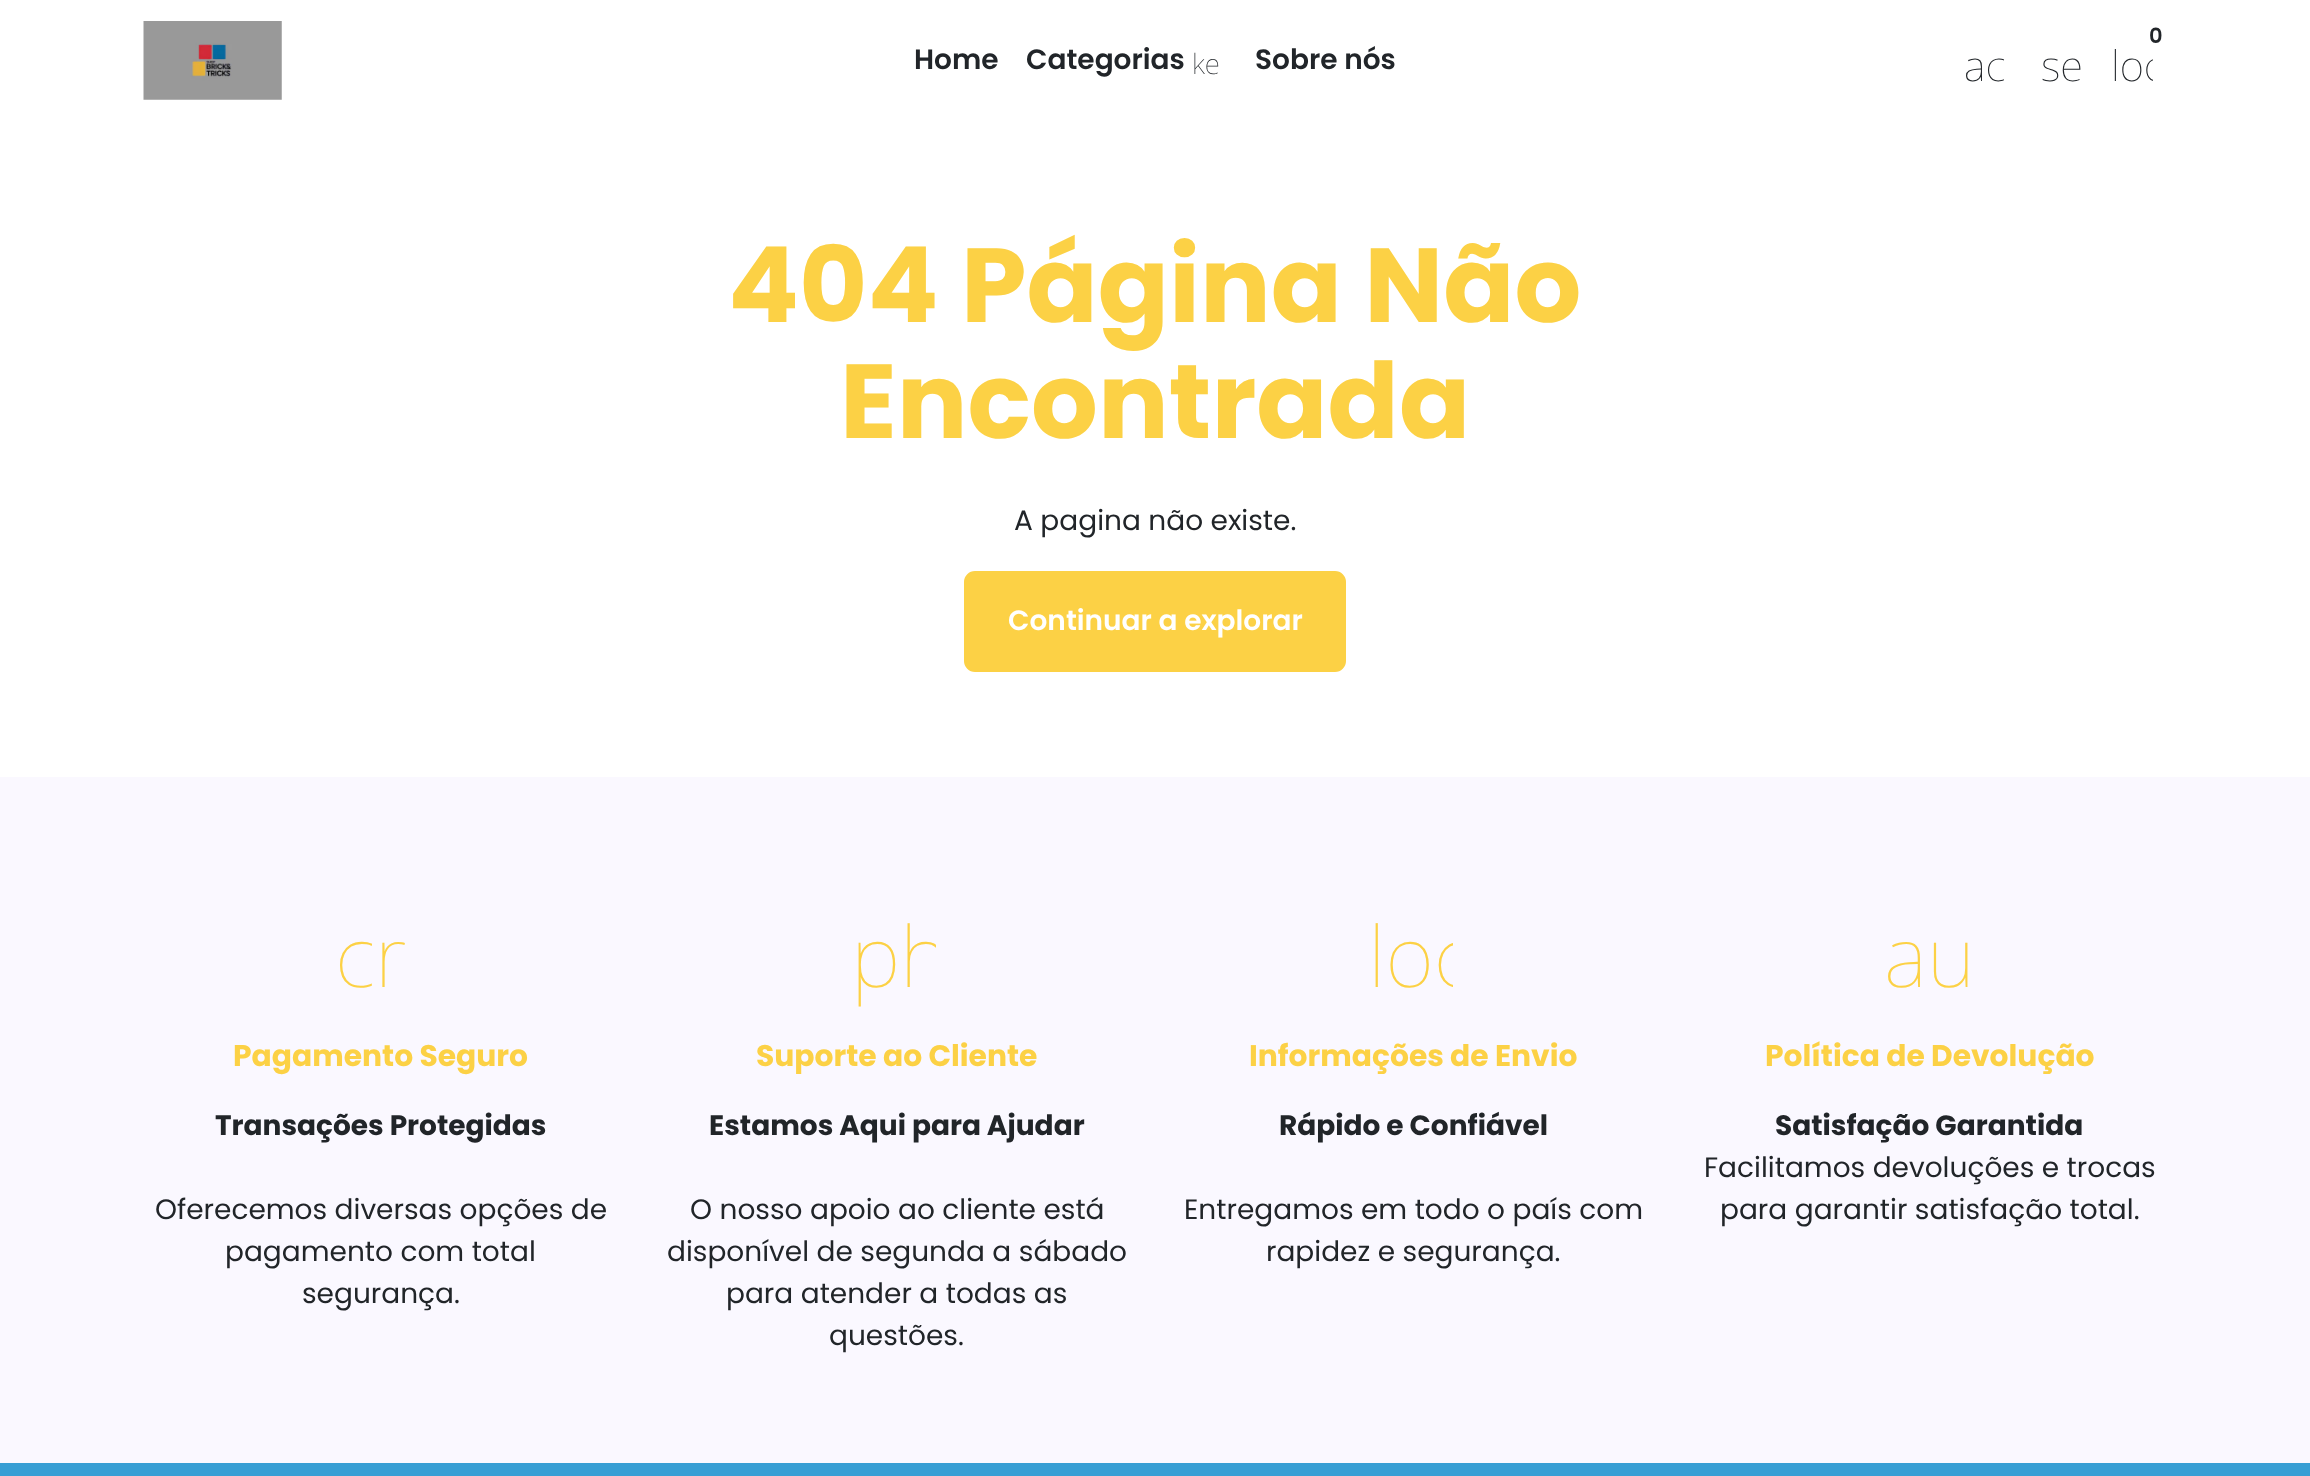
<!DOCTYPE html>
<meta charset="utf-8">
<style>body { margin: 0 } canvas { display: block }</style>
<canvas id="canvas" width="2310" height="1476"></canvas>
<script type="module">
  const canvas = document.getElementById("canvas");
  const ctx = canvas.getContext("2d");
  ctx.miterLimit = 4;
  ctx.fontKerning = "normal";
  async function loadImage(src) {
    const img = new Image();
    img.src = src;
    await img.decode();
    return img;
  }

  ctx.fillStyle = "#ffffff";
  ctx.fillRect(0, 0, 2310, 1476);
  ctx.drawImage(await loadImage("img1.png"), 143, 21, 139, 79);
  ctx.font = "600 28px Poppins";
  ctx.fillStyle = "#212529";
  ctx.fillText("Home", 914, 69);
  ctx.fillText("Categorias", 1026, 69);
  ctx.font = "100 28px Noto Sans";
  ctx.fillText("ke", 1192, 74);
  ctx.font = "600 28px Poppins";
  ctx.fillText("Sobre nós", 1255, 69);
  ctx.font = "100 42px Noto Sans";
  ctx.fillText("ac", 1964, 81);
  ctx.fillText("se", 2041, 81);
  ctx.font = "600 21px Poppins";
  ctx.fillText("0", 2149, 43);
  ctx.save();
  ctx.beginPath();
  ctx.rect(2111, 40, 42, 42);
  ctx.clip();
  ctx.font = "100 42px Noto Sans";
  ctx.fillText("loc", 2111, 81);
  ctx.restore();
  ctx.font = "bold 105px Poppins";
  ctx.fillStyle = "#fcd145";
  ctx.fillText("404 Página Não", 728, 322);
  ctx.fillText("Encontrada", 840, 438);
  ctx.font = "28px Poppins";
  ctx.fillStyle = "#212529";
  ctx.fillText("A pagina não existe.", 1014, 530);
  ctx.fillStyle = "#fcd145";
  ctx.beginPath();
  ctx.roundRect(965, 572, 380, 99, 10);
  ctx.fill();
  ctx.strokeStyle = "#fcd145";
  ctx.lineWidth = 2;
  ctx.stroke();
  ctx.font = "600 28px Poppins";
  ctx.fillStyle = "#ffffff";
  ctx.fillText("Continuar a explorar", 1008, 630);
  ctx.fillStyle = "#faf8ff";
  ctx.fillRect(0, 777, 2310, 686);
  ctx.font = "100 84px Noto Sans";
  ctx.fillStyle = "#fcd145";
  ctx.fillText("cr", 335, 987);
  ctx.font = "bold 29.75px Poppins";
  ctx.fillText("Pagamento Seguro", 233, 1066);
  ctx.font = "bold 28px Poppins";
  ctx.fillStyle = "#212529";
  ctx.fillText("Transações Protegidas", 215, 1135);
  ctx.font = "28px Poppins";
  ctx.fillText("Oferecemos diversas opções de", 155, 1219);
  ctx.fillText("pagamento com total", 225, 1261);
  ctx.fillText("segurança.", 302, 1303);
  ctx.save();
  ctx.beginPath();
  ctx.rect(852, 882, 84, 126);
  ctx.clip();
  ctx.font = "100 84px Noto Sans";
  ctx.fillStyle = "#fcd145";
  ctx.fillText("ph", 851, 987);
  ctx.restore();
  ctx.font = "bold 29.75px Poppins";
  ctx.fillStyle = "#fcd145";
  ctx.fillText("Suporte ao Cliente", 756, 1066);
  ctx.font = "bold 28px Poppins";
  ctx.fillStyle = "#212529";
  ctx.fillText("Estamos Aqui para Ajudar", 709, 1135);
  ctx.font = "28px Poppins";
  ctx.fillText("O nosso apoio ao cliente está", 690, 1219);
  ctx.fillText("disponível de segunda a sábado", 667, 1261);
  ctx.fillText("para atender a todas as", 726, 1303);
  ctx.fillText("questões.", 829, 1345);
  ctx.save();
  ctx.beginPath();
  ctx.rect(1369, 882, 84, 126);
  ctx.clip();
  ctx.font = "100 84px Noto Sans";
  ctx.fillStyle = "#fcd145";
  ctx.fillText("loc", 1368, 987);
  ctx.restore();
  ctx.font = "bold 29.75px Poppins";
  ctx.fillStyle = "#fcd145";
  ctx.fillText("Informações de Envio", 1249, 1066);
  ctx.font = "bold 28px Poppins";
  ctx.fillStyle = "#212529";
  ctx.fillText("Rápido e Confiável", 1279, 1135);
  ctx.font = "28px Poppins";
  ctx.fillText("Entregamos em todo o país com", 1184, 1219);
  ctx.fillText("rapidez e segurança.", 1266, 1261);
  ctx.font = "100 84px Noto Sans";
  ctx.fillStyle = "#fcd145";
  ctx.fillText("au", 1884, 987);
  ctx.font = "bold 29.75px Poppins";
  ctx.fillText("Política de Devolução", 1765, 1066);
  ctx.font = "bold 28px Poppins";
  ctx.fillStyle = "#212529";
  ctx.fillText("Satisfação Garantida", 1775, 1135);
  ctx.font = "28px Poppins";
  ctx.fillText("Facilitamos devoluções e trocas", 1704, 1177);
  ctx.fillText("para garantir satisfação total.", 1720, 1219);
  ctx.fillStyle = "#379ed4";
  ctx.fillRect(0, 1463, 2310, 13);
</script>
